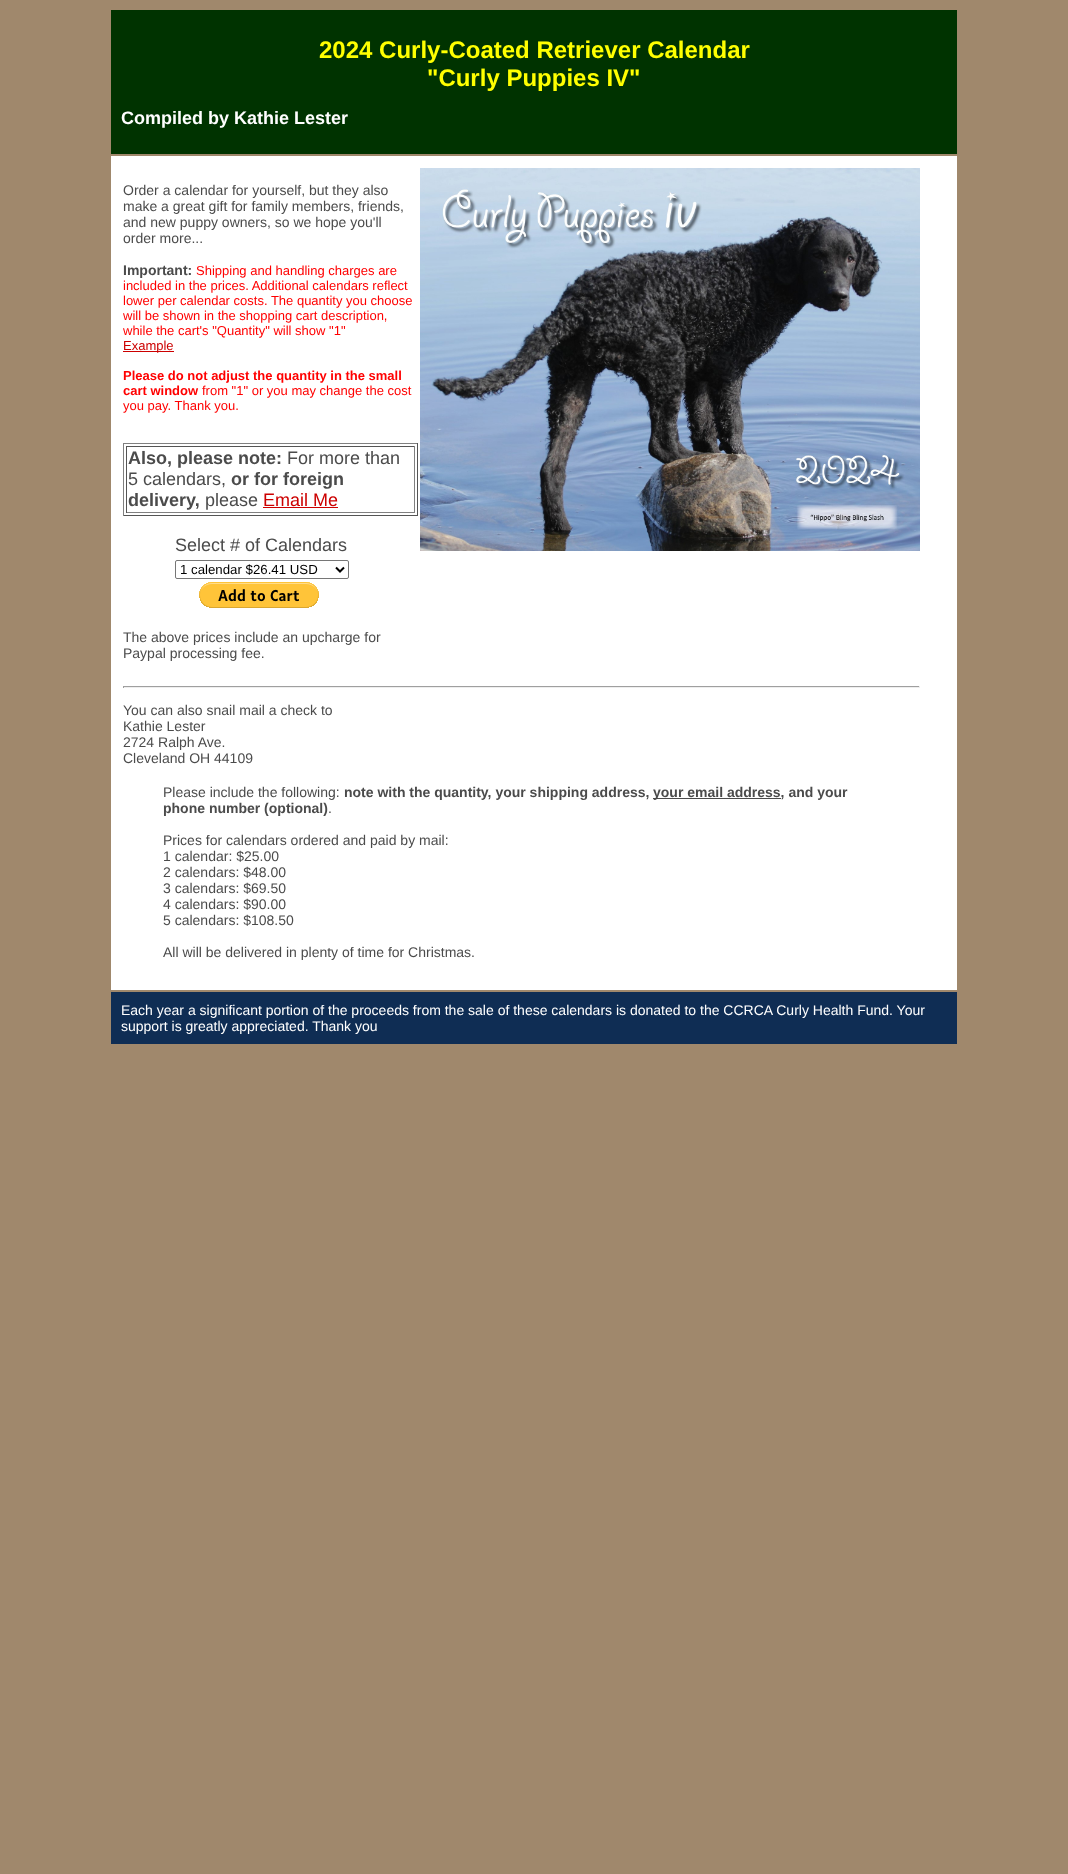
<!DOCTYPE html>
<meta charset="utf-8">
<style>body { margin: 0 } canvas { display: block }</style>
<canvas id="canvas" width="1068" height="1874"></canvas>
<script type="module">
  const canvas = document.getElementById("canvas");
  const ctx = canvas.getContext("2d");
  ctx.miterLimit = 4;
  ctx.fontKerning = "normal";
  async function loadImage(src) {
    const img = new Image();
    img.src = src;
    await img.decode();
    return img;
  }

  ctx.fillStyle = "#a0886c";
  ctx.fillRect(0, 0, 1068, 1874);
  ctx.fillStyle = "#003300";
  ctx.fillRect(111, 10, 846, 144);
  ctx.font = "bold 24px Liberation Sans";
  ctx.fillStyle = "#ffff00";
  ctx.fillText("2024 Curly-Coated Retriever Calendar", 319, 58);
  ctx.fillText("\"Curly Puppies IV\"", 427, 86);
  ctx.font = "bold 18px Liberation Sans";
  ctx.fillStyle = "#ffffff";
  ctx.fillText("Compiled by Kathie Lester", 121, 124);
  ctx.fillRect(111, 156, 846, 834);
  ctx.font = "14px Liberation Sans";
  ctx.fillStyle = "#4b4b4b";
  ctx.fillText("Order a calendar for yourself, but they also", 123, 195);
  ctx.fillText("make a great gift for family members, friends,", 123, 211);
  ctx.fillText("and new puppy owners, so we hope you'll", 123, 227);
  ctx.fillText("order more...", 123, 243);
  ctx.font = "bold 14px Liberation Sans";
  ctx.fillText("Important:", 123, 275);
  ctx.font = "13px Liberation Sans";
  ctx.fillStyle = "#ff0000";
  ctx.fillText("Shipping and handling charges are", 196, 275);
  ctx.fillText("included in the prices. Additional calendars reflect", 123, 290);
  ctx.fillText("lower per calendar costs. The quantity you choose", 123, 305);
  ctx.fillText("will be shown in the shopping cart description,", 123, 320);
  ctx.fillText("while the cart's \"Quantity\" will show \"1\"", 123, 335);
  ctx.fillStyle = "#cc0000";
  ctx.fillRect(123, 351, 51, 1);
  ctx.fillText("Example", 123, 350);
  ctx.font = "bold 13px Liberation Sans";
  ctx.fillStyle = "#ff0000";
  ctx.fillText("Please do not adjust the quantity in the small", 123, 380);
  ctx.fillText("cart window", 123, 395);
  ctx.font = "13px Liberation Sans";
  ctx.fillText("from \"1\" or you may change the cost", 202, 395);
  ctx.fillText("you pay. Thank you.", 123, 410);
  ctx.fillStyle = "#808080";
  ctx.fillRect(123, 443, 295, 1);
  ctx.fillStyle = "#555555";
  ctx.fillRect(417, 443, 1, 73);
  ctx.fillRect(123, 515, 295, 1);
  ctx.fillStyle = "#808080";
  ctx.fillRect(123, 443, 1, 73);
  ctx.fillStyle = "#555555";
  ctx.fillRect(126, 446, 289, 1);
  ctx.fillStyle = "#808080";
  ctx.fillRect(414, 446, 1, 67);
  ctx.fillRect(126, 512, 289, 1);
  ctx.fillStyle = "#555555";
  ctx.fillRect(126, 446, 1, 67);
  ctx.font = "bold 18px Liberation Sans";
  ctx.fillStyle = "#4b4b4b";
  ctx.fillText("Also, please note:", 128, 464);
  ctx.font = "18px Liberation Sans";
  ctx.fillText("For more than", 287, 464);
  ctx.fillText("5 calendars,", 128, 485);
  ctx.font = "bold 18px Liberation Sans";
  ctx.fillText("or for foreign", 231, 485);
  ctx.fillText("delivery,", 128, 506);
  ctx.font = "18px Liberation Sans";
  ctx.fillText("please", 205, 506);
  ctx.fillStyle = "#cc0000";
  ctx.fillText("Email Me", 263, 506);
  ctx.fillRect(263, 507, 75, 1);
  ctx.fillStyle = "#4b4b4b";
  ctx.fillText("Select # of Calendars", 175, 551);
  ctx.beginPath();
  ctx.roundRect(175.5, 560.5, 173, 18, 1.5);
  ctx.strokeStyle = "#767676";
  ctx.stroke();
  ctx.beginPath();
  ctx.moveTo(336, 567.5);
  ctx.lineTo(340, 571.5);
  ctx.lineTo(344, 567.5);
  ctx.strokeStyle = "#000000";
  ctx.lineWidth = 2;
  ctx.stroke();
  ctx.font = "13.25px Liberation Sans";
  ctx.fillStyle = "#000000";
  ctx.fillText("1 calendar $26.41 USD", 180, 574);
  ctx.drawImage(await loadImage("img1.png"), 199, 582, 120, 26);
  ctx.font = "14px Liberation Sans";
  ctx.fillStyle = "#4b4b4b";
  ctx.fillText("The above prices include an upcharge for", 123, 642);
  ctx.fillText("Paypal processing fee.", 123, 658);
  ctx.drawImage(await loadImage("img2.png"), 420, 168, 500, 383);
  ctx.fillStyle = "#9f9f9f";
  ctx.fillRect(123, 686, 797, 1);
  ctx.fillStyle = "#eeeeee";
  ctx.fillRect(919, 686, 1, 2);
  ctx.fillRect(123, 687, 797, 1);
  ctx.fillStyle = "#9f9f9f";
  ctx.fillRect(123, 686, 1, 2);
  ctx.fillStyle = "#4b4b4b";
  ctx.fillText("You can also snail mail a check to", 123, 715);
  ctx.fillText("Kathie Lester", 123, 731);
  ctx.fillText("2724 Ralph Ave.", 123, 747);
  ctx.fillText("Cleveland OH 44109", 123, 763);
  ctx.fillText("Please include the following:", 163, 797);
  ctx.font = "bold 14px Liberation Sans";
  ctx.fillText("note with the quantity, your shipping address,", 344, 797);
  ctx.fillRect(653, 798, 128, 1);
  ctx.fillText("your email address, and your", 653, 797);
  ctx.fillText("phone number (optional)", 163, 813);
  ctx.font = "14px Liberation Sans";
  ctx.fillText(".", 328, 813);
  ctx.fillText("Prices for calendars ordered and paid by mail:", 163, 845);
  ctx.fillText("1 calendar: $25.00", 163, 861);
  ctx.fillText("2 calendars: $48.00", 163, 877);
  ctx.fillText("3 calendars: $69.50", 163, 893);
  ctx.fillText("4 calendars: $90.00", 163, 909);
  ctx.fillText("5 calendars: $108.50", 163, 925);
  ctx.fillText("All will be delivered in plenty of time for Christmas.", 163, 957);
  ctx.fillStyle = "#0f2d54";
  ctx.fillRect(111, 992, 846, 52);
  ctx.fillStyle = "#ffffff";
  ctx.fillText("Each year a significant portion of the proceeds from the sale of these calendars is donated to the CCRCA Curly Health Fund. Your", 121, 1015);
  ctx.fillText("support is greatly appreciated. Thank you", 121, 1031);
</script>
